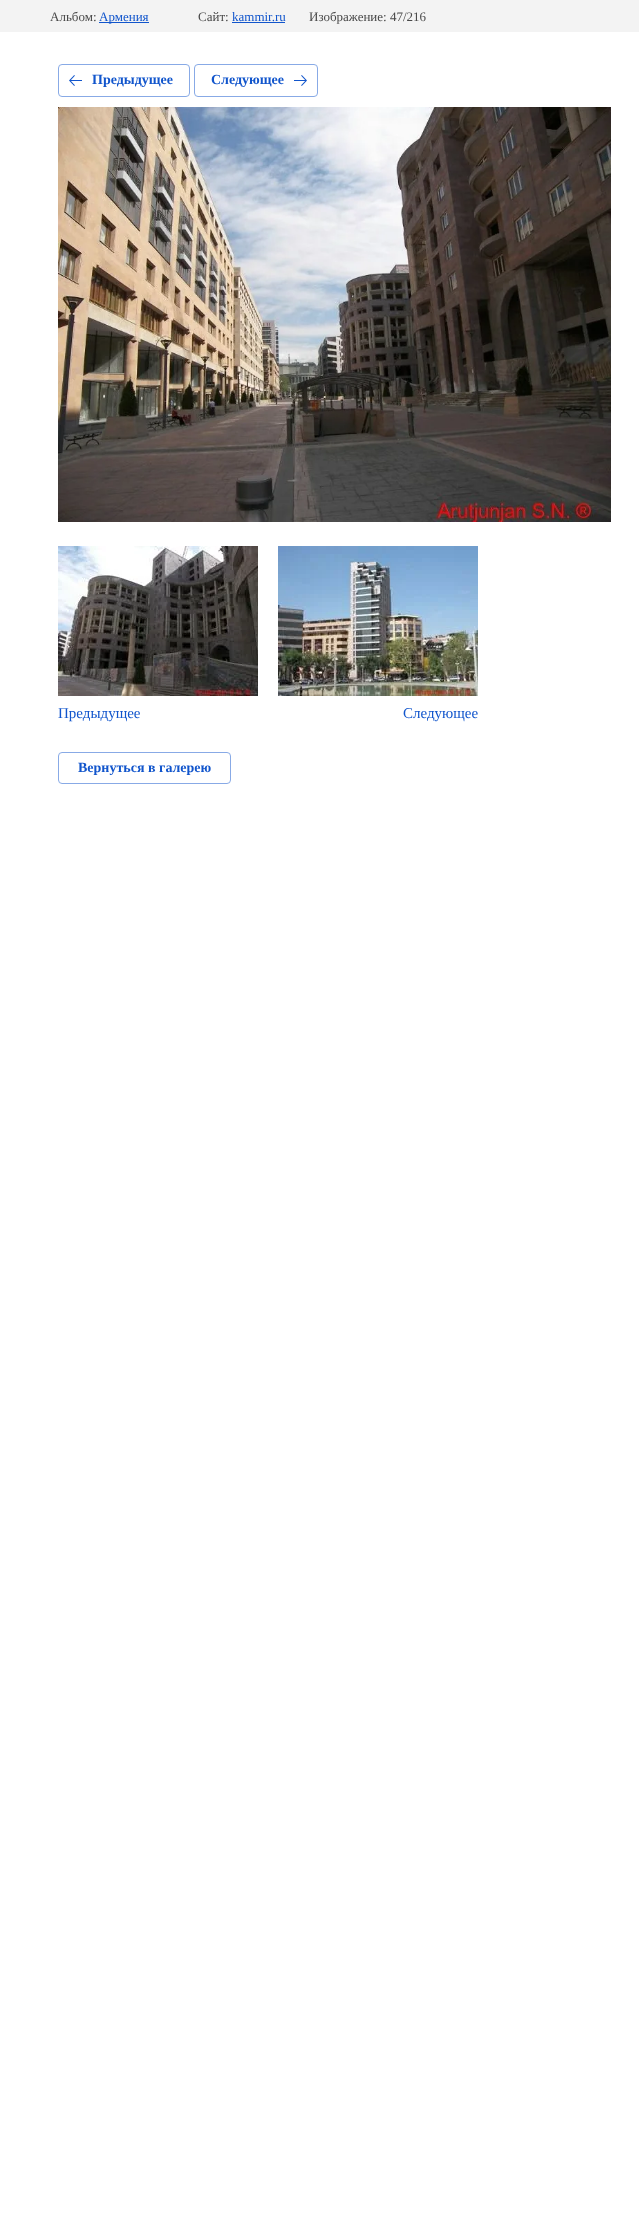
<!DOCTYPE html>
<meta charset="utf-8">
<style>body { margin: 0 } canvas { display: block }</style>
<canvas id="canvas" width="639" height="2222"></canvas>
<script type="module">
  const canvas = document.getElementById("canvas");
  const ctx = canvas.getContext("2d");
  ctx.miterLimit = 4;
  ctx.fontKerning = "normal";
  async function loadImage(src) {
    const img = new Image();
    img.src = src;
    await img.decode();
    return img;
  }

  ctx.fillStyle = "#ffffff";
  ctx.fillRect(0, 0, 639, 2222);
  ctx.fillStyle = "#f3f3f3";
  ctx.fillRect(0, 0, 639, 32);
  ctx.font = "13px Liberation Serif";
  ctx.fillStyle = "#484848";
  ctx.fillText("Альбом:", 50, 21);
  ctx.fillStyle = "#1155cc";
  ctx.fillRect(99, 22, 50, 1);
  ctx.fillText("Армения", 99, 21);
  ctx.fillStyle = "#484848";
  ctx.fillText("Сайт:", 198, 21);
  ctx.fillStyle = "#1155cc";
  ctx.fillText("kammir.ru", 232, 21);
  ctx.fillRect(232, 22, 53, 1);
  ctx.fillStyle = "#484848";
  ctx.fillText("Изображение: 47/216", 309, 21);
  ctx.beginPath();
  ctx.roundRect(58.5, 64.5, 131, 32, 3.5);
  ctx.strokeStyle = "#88aae6";
  ctx.stroke();
  ctx.drawImage(await loadImage("img1.png"), 69, 75, 13, 11);
  ctx.font = "bold 14px Liberation Serif";
  ctx.fillStyle = "#1155cc";
  ctx.fillText("Предыдущее", 92, 84);
  ctx.beginPath();
  ctx.roundRect(194.5, 64.5, 123, 32, 3.5);
  ctx.stroke();
  ctx.fillText("Следующее", 211, 84);
  ctx.drawImage(await loadImage("img2.png"), 294, 75, 13, 11);
  ctx.drawImage(await loadImage("img3.png"), 58, 107, 553, 415);
  ctx.drawImage(await loadImage("img4.png"), 58, 546, 200, 150);
  ctx.font = "15px Liberation Serif";
  ctx.fillText("Предыдущее", 58, 718);
  ctx.drawImage(await loadImage("img5.png"), 278, 546, 200, 150);
  ctx.fillText("Следующее", 403, 718);
  ctx.beginPath();
  ctx.roundRect(58.5, 752.5, 172, 31, 3.5);
  ctx.stroke();
  ctx.font = "bold 14px Liberation Serif";
  ctx.fillText("Вернуться в галерею", 78, 772);
</script>
